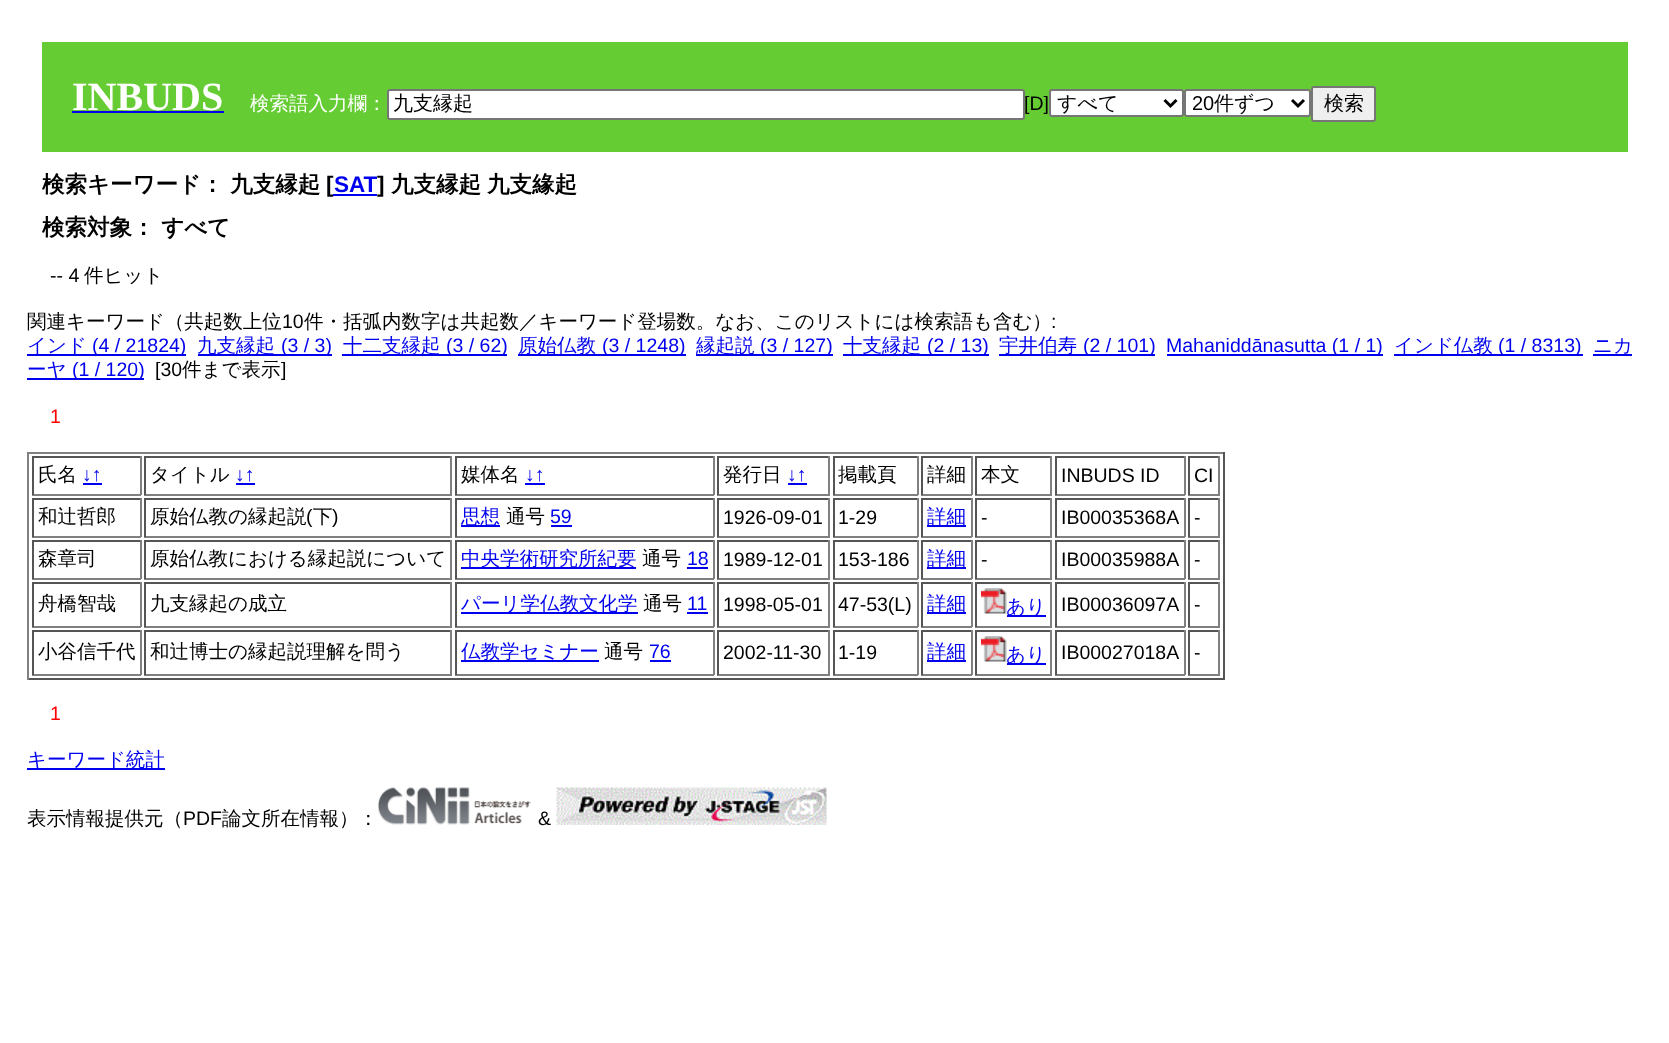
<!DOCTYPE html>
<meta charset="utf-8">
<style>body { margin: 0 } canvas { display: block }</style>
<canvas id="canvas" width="1669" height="1043"></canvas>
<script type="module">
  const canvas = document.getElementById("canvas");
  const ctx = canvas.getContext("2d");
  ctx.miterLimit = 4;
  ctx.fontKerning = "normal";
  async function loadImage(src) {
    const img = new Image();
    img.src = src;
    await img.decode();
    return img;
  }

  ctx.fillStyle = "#ffffff";
  ctx.fillRect(0, 0, 1669, 1043);
  ctx.fillStyle = "#66cc33";
  ctx.fillRect(42, 42, 1586, 110);
  ctx.font = "bold 40px Liberation Serif";
  ctx.fillStyle = "#ffffff";
  ctx.fillText("INBUDS", 72, 110);
  ctx.fillStyle = "#0000ee";
  ctx.fillRect(72, 111, 152, 2);
  ctx.font = "500 19.5px WenQuanYi Zen Hei";
  ctx.fillStyle = "#ffffff";
  ctx.fillText("検索語入力欄：", 250, 110);
  ctx.beginPath();
  ctx.roundRect(388, 90, 636, 29, 2);
  ctx.fill();
  ctx.strokeStyle = "#767676";
  ctx.lineWidth = 2;
  ctx.stroke();
  ctx.font = "500 20px WenQuanYi Zen Hei";
  ctx.fillStyle = "#000000";
  ctx.fillText("九支縁起", 393, 110);
  ctx.font = "19.5px Liberation Sans";
  ctx.fillText("[D]", 1024, 110);
  ctx.fillStyle = "#ffffff";
  ctx.beginPath();
  ctx.roundRect(1050, 90, 133, 26, 2);
  ctx.fill();
  ctx.stroke();
  ctx.beginPath();
  ctx.moveTo(1164.5, 100);
  ctx.lineTo(1170.5, 106);
  ctx.lineTo(1176.5, 100);
  ctx.strokeStyle = "#000000";
  ctx.lineWidth = 3;
  ctx.stroke();
  ctx.font = "500 20px WenQuanYi Zen Hei";
  ctx.fillStyle = "#000000";
  ctx.fillText("すべて", 1057, 110);
  ctx.fillStyle = "#ffffff";
  ctx.beginPath();
  ctx.roundRect(1185, 90, 125, 26, 2);
  ctx.fill();
  ctx.strokeStyle = "#767676";
  ctx.lineWidth = 2;
  ctx.stroke();
  ctx.beginPath();
  ctx.moveTo(1292, 100);
  ctx.lineTo(1298, 106);
  ctx.lineTo(1304, 100);
  ctx.strokeStyle = "#000000";
  ctx.lineWidth = 3;
  ctx.stroke();
  ctx.font = "20px Liberation Sans";
  ctx.fillStyle = "#000000";
  ctx.fillText("20", 1192, 110);
  ctx.font = "500 20px WenQuanYi Zen Hei";
  ctx.fillText("件ずつ", 1214, 110);
  ctx.fillStyle = "#efefef";
  ctx.beginPath();
  ctx.roundRect(1312, 87, 63, 34, 2);
  ctx.fill();
  ctx.strokeStyle = "#767676";
  ctx.lineWidth = 2;
  ctx.stroke();
  ctx.fillStyle = "#000000";
  ctx.fillText("検索", 1324, 110);
  ctx.font = "bold 22.5px WenQuanYi Zen Hei";
  ctx.fillText("検索キーワード： 九支縁起", 42, 192);
  ctx.font = "bold 22.5px Liberation Sans";
  ctx.fillText("[", 326, 192);
  ctx.fillStyle = "#0000ee";
  ctx.fillText("SAT", 334, 192);
  ctx.fillRect(333, 194, 44, 2);
  ctx.fillStyle = "#000000";
  ctx.fillText("]", 377, 192);
  ctx.font = "bold 22.5px WenQuanYi Zen Hei";
  ctx.fillText("九支縁起", 391, 192);
  ctx.fillText("九支緣起", 487, 192);
  ctx.fillText("検索対象： すべて", 42, 235);
  ctx.font = "19.5px Liberation Sans";
  ctx.fillText("-- 4", 50, 282);
  ctx.font = "500 19.5px WenQuanYi Zen Hei";
  ctx.fillText("件ヒット", 84, 282);
  ctx.fillText("関連キーワード（共起数上位", 27, 328);
  ctx.font = "19.5px Liberation Sans";
  ctx.fillText("10", 282, 328);
  ctx.font = "500 19.5px WenQuanYi Zen Hei";
  ctx.fillText("件・括弧内数字は共起数／キーワード登場数。なお、このリストには検索語も含む）", 304, 328);
  ctx.font = "19.5px Liberation Sans";
  ctx.fillText(":", 1051, 328);
  ctx.fillStyle = "#0000ee";
  ctx.fillRect(27, 354, 159, 2);
  ctx.font = "500 19.5px WenQuanYi Zen Hei";
  ctx.fillText("インド", 27, 352);
  ctx.font = "19.5px Liberation Sans";
  ctx.fillText("(4 / 21824)", 92, 352);
  ctx.fillRect(198, 354, 134, 2);
  ctx.font = "500 19.5px WenQuanYi Zen Hei";
  ctx.fillText("九支縁起", 197, 352);
  ctx.font = "19.5px Liberation Sans";
  ctx.fillText("(3 / 3)", 281, 352);
  ctx.fillRect(342, 354, 165, 2);
  ctx.font = "500 19.5px WenQuanYi Zen Hei";
  ctx.fillText("十二支縁起", 343, 352);
  ctx.font = "19.5px Liberation Sans";
  ctx.fillText("(3 / 62)", 446, 352);
  ctx.fillRect(518, 354, 168, 2);
  ctx.font = "500 19.5px WenQuanYi Zen Hei";
  ctx.fillText("原始仏教", 518, 352);
  ctx.font = "19.5px Liberation Sans";
  ctx.fillText("(3 / 1248)", 602, 352);
  ctx.fillRect(696, 354, 137, 2);
  ctx.font = "500 19.5px WenQuanYi Zen Hei";
  ctx.fillText("縁起説", 696, 352);
  ctx.font = "19.5px Liberation Sans";
  ctx.fillText("(3 / 127)", 760, 352);
  ctx.fillRect(843, 354, 146, 2);
  ctx.font = "500 19.5px WenQuanYi Zen Hei";
  ctx.fillText("十支縁起", 843, 352);
  ctx.font = "19.5px Liberation Sans";
  ctx.fillText("(2 / 13)", 927, 352);
  ctx.fillRect(999, 354, 156, 2);
  ctx.font = "500 19.5px WenQuanYi Zen Hei";
  ctx.fillText("宇井伯寿", 999, 352);
  ctx.font = "19.5px Liberation Sans";
  ctx.fillText("(2 / 101)", 1083, 352);
  ctx.fillRect(1167, 354, 216, 2);
  ctx.fillText("Mahaniddānasutta (1 / 1)", 1166, 352);
  ctx.fillRect(1394, 354, 189, 2);
  ctx.font = "500 19.5px WenQuanYi Zen Hei";
  ctx.fillText("インド仏教", 1394, 352);
  ctx.font = "19.5px Liberation Sans";
  ctx.fillText("(1 / 8313)", 1498, 352);
  ctx.font = "500 19.5px WenQuanYi Zen Hei";
  ctx.fillText("ニカ", 1593, 352);
  ctx.fillRect(1593, 354, 39, 2);
  ctx.fillRect(27, 378, 117, 2);
  ctx.fillText("ーヤ", 27, 376);
  ctx.font = "19.5px Liberation Sans";
  ctx.fillText("(1 / 120)", 72, 376);
  ctx.fillStyle = "#000000";
  ctx.fillText("[30", 155, 376);
  ctx.font = "500 19.5px WenQuanYi Zen Hei";
  ctx.fillText("件まで表示", 182, 376);
  ctx.font = "19.5px Liberation Sans";
  ctx.fillText("]", 281, 376);
  ctx.fillStyle = "#ff0000";
  ctx.fillText("1", 50, 423);
  ctx.fillStyle = "#808080";
  ctx.fillRect(27, 452, 1197, 2);
  ctx.fillStyle = "#555555";
  ctx.fillRect(1223, 452, 2, 228);
  ctx.fillRect(27, 678, 1197, 2);
  ctx.fillStyle = "#808080";
  ctx.fillRect(27, 452, 2, 228);
  ctx.fillStyle = "#555555";
  ctx.fillRect(32, 456, 109, 2);
  ctx.fillStyle = "#808080";
  ctx.fillRect(140, 456, 2, 39);
  ctx.fillRect(32, 494, 109, 2);
  ctx.fillStyle = "#555555";
  ctx.fillRect(32, 456, 2, 39);
  ctx.font = "500 19.5px WenQuanYi Zen Hei";
  ctx.fillStyle = "#000000";
  ctx.fillText("氏名", 38, 481);
  ctx.font = "19.5px Liberation Sans";
  ctx.fillStyle = "#0000ee";
  ctx.fillText("↓↑", 82, 481);
  ctx.fillRect(83, 483, 19, 2);
  ctx.fillStyle = "#555555";
  ctx.fillRect(144, 456, 308, 2);
  ctx.fillStyle = "#808080";
  ctx.fillRect(450, 456, 2, 39);
  ctx.fillRect(144, 494, 308, 2);
  ctx.fillStyle = "#555555";
  ctx.fillRect(144, 456, 2, 39);
  ctx.font = "500 19.5px WenQuanYi Zen Hei";
  ctx.fillStyle = "#000000";
  ctx.fillText("タイトル", 150, 481);
  ctx.font = "19.5px Liberation Sans";
  ctx.fillStyle = "#0000ee";
  ctx.fillText("↓↑", 235, 481);
  ctx.fillRect(236, 483, 19, 2);
  ctx.fillStyle = "#555555";
  ctx.fillRect(455, 456, 259, 2);
  ctx.fillStyle = "#808080";
  ctx.fillRect(713, 456, 2, 39);
  ctx.fillRect(455, 494, 259, 2);
  ctx.fillStyle = "#555555";
  ctx.fillRect(455, 456, 2, 39);
  ctx.font = "500 19.5px WenQuanYi Zen Hei";
  ctx.fillStyle = "#000000";
  ctx.fillText("媒体名", 461, 481);
  ctx.font = "19.5px Liberation Sans";
  ctx.fillStyle = "#0000ee";
  ctx.fillText("↓↑", 525, 481);
  ctx.fillRect(525, 483, 20, 2);
  ctx.fillStyle = "#555555";
  ctx.fillRect(717, 456, 113, 2);
  ctx.fillStyle = "#808080";
  ctx.fillRect(828, 456, 2, 39);
  ctx.fillRect(717, 494, 113, 2);
  ctx.fillStyle = "#555555";
  ctx.fillRect(717, 456, 2, 39);
  ctx.font = "500 19.5px WenQuanYi Zen Hei";
  ctx.fillStyle = "#000000";
  ctx.fillText("発行日", 723, 481);
  ctx.font = "19.5px Liberation Sans";
  ctx.fillStyle = "#0000ee";
  ctx.fillText("↓↑", 787, 481);
  ctx.fillRect(788, 483, 19, 2);
  ctx.fillStyle = "#555555";
  ctx.fillRect(833, 456, 85, 2);
  ctx.fillStyle = "#808080";
  ctx.fillRect(917, 456, 2, 39);
  ctx.fillRect(833, 494, 85, 2);
  ctx.fillStyle = "#555555";
  ctx.fillRect(833, 456, 2, 39);
  ctx.font = "500 19.5px WenQuanYi Zen Hei";
  ctx.fillStyle = "#000000";
  ctx.fillText("掲載頁", 838, 481);
  ctx.fillStyle = "#555555";
  ctx.fillRect(921, 456, 51, 2);
  ctx.fillStyle = "#808080";
  ctx.fillRect(971, 456, 2, 39);
  ctx.fillRect(921, 494, 51, 2);
  ctx.fillStyle = "#555555";
  ctx.fillRect(921, 456, 2, 39);
  ctx.fillStyle = "#000000";
  ctx.fillText("詳細", 927, 481);
  ctx.fillStyle = "#555555";
  ctx.fillRect(975, 456, 77, 2);
  ctx.fillStyle = "#808080";
  ctx.fillRect(1050, 456, 2, 39);
  ctx.fillRect(975, 494, 77, 2);
  ctx.fillStyle = "#555555";
  ctx.fillRect(975, 456, 2, 39);
  ctx.fillStyle = "#000000";
  ctx.fillText("本文", 981, 481);
  ctx.fillStyle = "#555555";
  ctx.fillRect(1055, 456, 130, 2);
  ctx.fillStyle = "#808080";
  ctx.fillRect(1184, 456, 2, 39);
  ctx.fillRect(1055, 494, 130, 2);
  ctx.fillStyle = "#555555";
  ctx.fillRect(1055, 456, 2, 39);
  ctx.font = "19.5px Liberation Sans";
  ctx.fillStyle = "#000000";
  ctx.fillText("INBUDS ID", 1061, 482);
  ctx.fillStyle = "#555555";
  ctx.fillRect(1188, 456, 32, 2);
  ctx.fillStyle = "#808080";
  ctx.fillRect(1218, 456, 2, 39);
  ctx.fillRect(1188, 494, 32, 2);
  ctx.fillStyle = "#555555";
  ctx.fillRect(1188, 456, 2, 39);
  ctx.fillStyle = "#000000";
  ctx.fillText("CI", 1194, 482);
  ctx.fillStyle = "#555555";
  ctx.fillRect(32, 498, 109, 2);
  ctx.fillStyle = "#808080";
  ctx.fillRect(140, 498, 2, 39);
  ctx.fillRect(32, 536, 109, 2);
  ctx.fillStyle = "#555555";
  ctx.fillRect(32, 498, 2, 39);
  ctx.font = "500 19.5px WenQuanYi Zen Hei";
  ctx.fillStyle = "#000000";
  ctx.fillText("和辻哲郎", 38, 523);
  ctx.fillStyle = "#555555";
  ctx.fillRect(144, 498, 308, 2);
  ctx.fillStyle = "#808080";
  ctx.fillRect(450, 498, 2, 39);
  ctx.fillRect(144, 536, 308, 2);
  ctx.fillStyle = "#555555";
  ctx.fillRect(144, 498, 2, 39);
  ctx.fillStyle = "#000000";
  ctx.fillText("原始仏教の縁起説", 150, 523);
  ctx.font = "19.5px Liberation Sans";
  ctx.fillText("(", 306, 523);
  ctx.font = "500 19.5px WenQuanYi Zen Hei";
  ctx.fillText("下", 313, 523);
  ctx.font = "19.5px Liberation Sans";
  ctx.fillText(")", 332, 523);
  ctx.fillStyle = "#555555";
  ctx.fillRect(455, 498, 259, 2);
  ctx.fillStyle = "#808080";
  ctx.fillRect(713, 498, 2, 39);
  ctx.fillRect(455, 536, 259, 2);
  ctx.fillStyle = "#555555";
  ctx.fillRect(455, 498, 2, 39);
  ctx.fillStyle = "#0000ee";
  ctx.fillRect(461, 525, 39, 2);
  ctx.font = "500 19.5px WenQuanYi Zen Hei";
  ctx.fillText("思想", 461, 523);
  ctx.fillStyle = "#000000";
  ctx.fillText("通号", 506, 523);
  ctx.font = "19.5px Liberation Sans";
  ctx.fillStyle = "#0000ee";
  ctx.fillText("59", 550, 523);
  ctx.fillRect(551, 525, 21, 2);
  ctx.fillStyle = "#555555";
  ctx.fillRect(717, 498, 113, 2);
  ctx.fillStyle = "#808080";
  ctx.fillRect(828, 498, 2, 39);
  ctx.fillRect(717, 536, 113, 2);
  ctx.fillStyle = "#555555";
  ctx.fillRect(717, 498, 2, 39);
  ctx.fillStyle = "#000000";
  ctx.fillText("1926-09-01", 723, 524);
  ctx.fillStyle = "#555555";
  ctx.fillRect(833, 498, 85, 2);
  ctx.fillStyle = "#808080";
  ctx.fillRect(917, 498, 2, 39);
  ctx.fillRect(833, 536, 85, 2);
  ctx.fillStyle = "#555555";
  ctx.fillRect(833, 498, 2, 39);
  ctx.fillStyle = "#000000";
  ctx.fillText("1-29", 838, 524);
  ctx.fillStyle = "#555555";
  ctx.fillRect(921, 498, 51, 2);
  ctx.fillStyle = "#808080";
  ctx.fillRect(971, 498, 2, 39);
  ctx.fillRect(921, 536, 51, 2);
  ctx.fillStyle = "#555555";
  ctx.fillRect(921, 498, 2, 39);
  ctx.fillStyle = "#0000ee";
  ctx.fillRect(927, 525, 39, 2);
  ctx.font = "500 19.5px WenQuanYi Zen Hei";
  ctx.fillText("詳細", 927, 523);
  ctx.fillStyle = "#555555";
  ctx.fillRect(975, 498, 77, 2);
  ctx.fillStyle = "#808080";
  ctx.fillRect(1050, 498, 2, 39);
  ctx.fillRect(975, 536, 77, 2);
  ctx.fillStyle = "#555555";
  ctx.fillRect(975, 498, 2, 39);
  ctx.font = "19.5px Liberation Sans";
  ctx.fillStyle = "#000000";
  ctx.fillText("-", 981, 524);
  ctx.fillStyle = "#555555";
  ctx.fillRect(1055, 498, 130, 2);
  ctx.fillStyle = "#808080";
  ctx.fillRect(1184, 498, 2, 39);
  ctx.fillRect(1055, 536, 130, 2);
  ctx.fillStyle = "#555555";
  ctx.fillRect(1055, 498, 2, 39);
  ctx.fillStyle = "#000000";
  ctx.fillText("IB00035368A", 1061, 524);
  ctx.fillStyle = "#555555";
  ctx.fillRect(1188, 498, 32, 2);
  ctx.fillStyle = "#808080";
  ctx.fillRect(1218, 498, 2, 39);
  ctx.fillRect(1188, 536, 32, 2);
  ctx.fillStyle = "#555555";
  ctx.fillRect(1188, 498, 2, 39);
  ctx.fillStyle = "#000000";
  ctx.fillText("-", 1194, 524);
  ctx.fillStyle = "#555555";
  ctx.fillRect(32, 540, 109, 2);
  ctx.fillStyle = "#808080";
  ctx.fillRect(140, 540, 2, 39);
  ctx.fillRect(32, 578, 109, 2);
  ctx.fillStyle = "#555555";
  ctx.fillRect(32, 540, 2, 39);
  ctx.font = "500 19.5px WenQuanYi Zen Hei";
  ctx.fillStyle = "#000000";
  ctx.fillText("森章司", 38, 565);
  ctx.fillStyle = "#555555";
  ctx.fillRect(144, 540, 308, 2);
  ctx.fillStyle = "#808080";
  ctx.fillRect(450, 540, 2, 39);
  ctx.fillRect(144, 578, 308, 2);
  ctx.fillStyle = "#555555";
  ctx.fillRect(144, 540, 2, 39);
  ctx.fillStyle = "#000000";
  ctx.fillText("原始仏教における縁起説について", 150, 565);
  ctx.fillStyle = "#555555";
  ctx.fillRect(455, 540, 259, 2);
  ctx.fillStyle = "#808080";
  ctx.fillRect(713, 540, 2, 39);
  ctx.fillRect(455, 578, 259, 2);
  ctx.fillStyle = "#555555";
  ctx.fillRect(455, 540, 2, 39);
  ctx.fillStyle = "#0000ee";
  ctx.fillRect(461, 567, 175, 2);
  ctx.fillText("中央学術研究所紀要", 461, 565);
  ctx.fillStyle = "#000000";
  ctx.fillText("通号", 642, 565);
  ctx.font = "19.5px Liberation Sans";
  ctx.fillStyle = "#0000ee";
  ctx.fillText("18", 687, 565);
  ctx.fillRect(687, 567, 21, 2);
  ctx.fillStyle = "#555555";
  ctx.fillRect(717, 540, 113, 2);
  ctx.fillStyle = "#808080";
  ctx.fillRect(828, 540, 2, 39);
  ctx.fillRect(717, 578, 113, 2);
  ctx.fillStyle = "#555555";
  ctx.fillRect(717, 540, 2, 39);
  ctx.fillStyle = "#000000";
  ctx.fillText("1989-12-01", 723, 566);
  ctx.fillStyle = "#555555";
  ctx.fillRect(833, 540, 85, 2);
  ctx.fillStyle = "#808080";
  ctx.fillRect(917, 540, 2, 39);
  ctx.fillRect(833, 578, 85, 2);
  ctx.fillStyle = "#555555";
  ctx.fillRect(833, 540, 2, 39);
  ctx.fillStyle = "#000000";
  ctx.fillText("153-186", 838, 566);
  ctx.fillStyle = "#555555";
  ctx.fillRect(921, 540, 51, 2);
  ctx.fillStyle = "#808080";
  ctx.fillRect(971, 540, 2, 39);
  ctx.fillRect(921, 578, 51, 2);
  ctx.fillStyle = "#555555";
  ctx.fillRect(921, 540, 2, 39);
  ctx.fillStyle = "#0000ee";
  ctx.fillRect(927, 567, 39, 2);
  ctx.font = "500 19.5px WenQuanYi Zen Hei";
  ctx.fillText("詳細", 927, 565);
  ctx.fillStyle = "#555555";
  ctx.fillRect(975, 540, 77, 2);
  ctx.fillStyle = "#808080";
  ctx.fillRect(1050, 540, 2, 39);
  ctx.fillRect(975, 578, 77, 2);
  ctx.fillStyle = "#555555";
  ctx.fillRect(975, 540, 2, 39);
  ctx.font = "19.5px Liberation Sans";
  ctx.fillStyle = "#000000";
  ctx.fillText("-", 981, 566);
  ctx.fillStyle = "#555555";
  ctx.fillRect(1055, 540, 130, 2);
  ctx.fillStyle = "#808080";
  ctx.fillRect(1184, 540, 2, 39);
  ctx.fillRect(1055, 578, 130, 2);
  ctx.fillStyle = "#555555";
  ctx.fillRect(1055, 540, 2, 39);
  ctx.fillStyle = "#000000";
  ctx.fillText("IB00035988A", 1061, 566);
  ctx.fillStyle = "#555555";
  ctx.fillRect(1188, 540, 32, 2);
  ctx.fillStyle = "#808080";
  ctx.fillRect(1218, 540, 2, 39);
  ctx.fillRect(1188, 578, 32, 2);
  ctx.fillStyle = "#555555";
  ctx.fillRect(1188, 540, 2, 39);
  ctx.fillStyle = "#000000";
  ctx.fillText("-", 1194, 566);
  ctx.fillStyle = "#555555";
  ctx.fillRect(32, 582, 109, 2);
  ctx.fillStyle = "#808080";
  ctx.fillRect(140, 582, 2, 45);
  ctx.fillRect(32, 626, 109, 2);
  ctx.fillStyle = "#555555";
  ctx.fillRect(32, 582, 2, 45);
  ctx.font = "500 19.5px WenQuanYi Zen Hei";
  ctx.fillStyle = "#000000";
  ctx.fillText("舟橋智哉", 38, 610);
  ctx.fillStyle = "#555555";
  ctx.fillRect(144, 582, 308, 2);
  ctx.fillStyle = "#808080";
  ctx.fillRect(450, 582, 2, 45);
  ctx.fillRect(144, 626, 308, 2);
  ctx.fillStyle = "#555555";
  ctx.fillRect(144, 582, 2, 45);
  ctx.fillStyle = "#000000";
  ctx.fillText("九支縁起の成立", 150, 610);
  ctx.fillStyle = "#555555";
  ctx.fillRect(455, 582, 259, 2);
  ctx.fillStyle = "#808080";
  ctx.fillRect(713, 582, 2, 45);
  ctx.fillRect(455, 626, 259, 2);
  ctx.fillStyle = "#555555";
  ctx.fillRect(455, 582, 2, 45);
  ctx.fillStyle = "#0000ee";
  ctx.fillRect(461, 612, 177, 2);
  ctx.fillText("パーリ学仏教文化学", 461, 610);
  ctx.fillStyle = "#000000";
  ctx.fillText("通号", 643, 610);
  ctx.font = "19.5px Liberation Sans";
  ctx.fillStyle = "#0000ee";
  ctx.fillText("11", 687, 610);
  ctx.fillRect(687, 612, 21, 2);
  ctx.fillStyle = "#555555";
  ctx.fillRect(717, 582, 113, 2);
  ctx.fillStyle = "#808080";
  ctx.fillRect(828, 582, 2, 45);
  ctx.fillRect(717, 626, 113, 2);
  ctx.fillStyle = "#555555";
  ctx.fillRect(717, 582, 2, 45);
  ctx.fillStyle = "#000000";
  ctx.fillText("1998-05-01", 723, 611);
  ctx.fillStyle = "#555555";
  ctx.fillRect(833, 582, 85, 2);
  ctx.fillStyle = "#808080";
  ctx.fillRect(917, 582, 2, 45);
  ctx.fillRect(833, 626, 85, 2);
  ctx.fillStyle = "#555555";
  ctx.fillRect(833, 582, 2, 45);
  ctx.fillStyle = "#000000";
  ctx.fillText("47-53(L)", 838, 611);
  ctx.fillStyle = "#555555";
  ctx.fillRect(921, 582, 51, 2);
  ctx.fillStyle = "#808080";
  ctx.fillRect(971, 582, 2, 45);
  ctx.fillRect(921, 626, 51, 2);
  ctx.fillStyle = "#555555";
  ctx.fillRect(921, 582, 2, 45);
  ctx.fillStyle = "#0000ee";
  ctx.fillRect(927, 612, 39, 2);
  ctx.font = "500 19.5px WenQuanYi Zen Hei";
  ctx.fillText("詳細", 927, 610);
  ctx.fillStyle = "#555555";
  ctx.fillRect(975, 582, 77, 2);
  ctx.fillStyle = "#808080";
  ctx.fillRect(1050, 582, 2, 45);
  ctx.fillRect(975, 626, 77, 2);
  ctx.fillStyle = "#555555";
  ctx.fillRect(975, 582, 2, 45);
  ctx.drawImage(await loadImage("img1.png"), 981, 588, 26, 26);
  ctx.fillStyle = "#0000ee";
  ctx.fillRect(1007, 615, 39, 2);
  ctx.fillText("あり", 1006, 613);
  ctx.fillStyle = "#555555";
  ctx.fillRect(1055, 582, 130, 2);
  ctx.fillStyle = "#808080";
  ctx.fillRect(1184, 582, 2, 45);
  ctx.fillRect(1055, 626, 130, 2);
  ctx.fillStyle = "#555555";
  ctx.fillRect(1055, 582, 2, 45);
  ctx.font = "19.5px Liberation Sans";
  ctx.fillStyle = "#000000";
  ctx.fillText("IB00036097A", 1061, 611);
  ctx.fillStyle = "#555555";
  ctx.fillRect(1188, 582, 32, 2);
  ctx.fillStyle = "#808080";
  ctx.fillRect(1218, 582, 2, 45);
  ctx.fillRect(1188, 626, 32, 2);
  ctx.fillStyle = "#555555";
  ctx.fillRect(1188, 582, 2, 45);
  ctx.fillStyle = "#000000";
  ctx.fillText("-", 1194, 611);
  ctx.fillStyle = "#555555";
  ctx.fillRect(32, 630, 109, 2);
  ctx.fillStyle = "#808080";
  ctx.fillRect(140, 630, 2, 45);
  ctx.fillRect(32, 674, 109, 2);
  ctx.fillStyle = "#555555";
  ctx.fillRect(32, 630, 2, 45);
  ctx.font = "500 19.5px WenQuanYi Zen Hei";
  ctx.fillStyle = "#000000";
  ctx.fillText("小谷信千代", 38, 658);
  ctx.fillStyle = "#555555";
  ctx.fillRect(144, 630, 308, 2);
  ctx.fillStyle = "#808080";
  ctx.fillRect(450, 630, 2, 45);
  ctx.fillRect(144, 674, 308, 2);
  ctx.fillStyle = "#555555";
  ctx.fillRect(144, 630, 2, 45);
  ctx.fillStyle = "#000000";
  ctx.fillText("和辻博士の縁起説理解を問う", 150, 658);
  ctx.fillStyle = "#555555";
  ctx.fillRect(455, 630, 259, 2);
  ctx.fillStyle = "#808080";
  ctx.fillRect(713, 630, 2, 45);
  ctx.fillRect(455, 674, 259, 2);
  ctx.fillStyle = "#555555";
  ctx.fillRect(455, 630, 2, 45);
  ctx.fillStyle = "#0000ee";
  ctx.fillRect(461, 660, 138, 2);
  ctx.fillText("仏教学セミナー", 461, 658);
  ctx.fillStyle = "#000000";
  ctx.fillText("通号", 604, 658);
  ctx.font = "19.5px Liberation Sans";
  ctx.fillStyle = "#0000ee";
  ctx.fillText("76", 649, 658);
  ctx.fillRect(650, 660, 21, 2);
  ctx.fillStyle = "#555555";
  ctx.fillRect(717, 630, 113, 2);
  ctx.fillStyle = "#808080";
  ctx.fillRect(828, 630, 2, 45);
  ctx.fillRect(717, 674, 113, 2);
  ctx.fillStyle = "#555555";
  ctx.fillRect(717, 630, 2, 45);
  ctx.fillStyle = "#000000";
  ctx.fillText("2002-11-30", 723, 659);
  ctx.fillStyle = "#555555";
  ctx.fillRect(833, 630, 85, 2);
  ctx.fillStyle = "#808080";
  ctx.fillRect(917, 630, 2, 45);
  ctx.fillRect(833, 674, 85, 2);
  ctx.fillStyle = "#555555";
  ctx.fillRect(833, 630, 2, 45);
  ctx.fillStyle = "#000000";
  ctx.fillText("1-19", 838, 659);
  ctx.fillStyle = "#555555";
  ctx.fillRect(921, 630, 51, 2);
  ctx.fillStyle = "#808080";
  ctx.fillRect(971, 630, 2, 45);
  ctx.fillRect(921, 674, 51, 2);
  ctx.fillStyle = "#555555";
  ctx.fillRect(921, 630, 2, 45);
  ctx.fillStyle = "#0000ee";
  ctx.fillRect(927, 660, 39, 2);
  ctx.font = "500 19.5px WenQuanYi Zen Hei";
  ctx.fillText("詳細", 927, 658);
  ctx.fillStyle = "#555555";
  ctx.fillRect(975, 630, 77, 2);
  ctx.fillStyle = "#808080";
  ctx.fillRect(1050, 630, 2, 45);
  ctx.fillRect(975, 674, 77, 2);
  ctx.fillStyle = "#555555";
  ctx.fillRect(975, 630, 2, 45);
  ctx.drawImage(await loadImage("img1.png"), 981, 636, 26, 26);
  ctx.fillStyle = "#0000ee";
  ctx.fillRect(1007, 663, 39, 2);
  ctx.fillText("あり", 1006, 661);
  ctx.fillStyle = "#555555";
  ctx.fillRect(1055, 630, 130, 2);
  ctx.fillStyle = "#808080";
  ctx.fillRect(1184, 630, 2, 45);
  ctx.fillRect(1055, 674, 130, 2);
  ctx.fillStyle = "#555555";
  ctx.fillRect(1055, 630, 2, 45);
  ctx.font = "19.5px Liberation Sans";
  ctx.fillStyle = "#000000";
  ctx.fillText("IB00027018A", 1061, 659);
  ctx.fillStyle = "#555555";
  ctx.fillRect(1188, 630, 32, 2);
  ctx.fillStyle = "#808080";
  ctx.fillRect(1218, 630, 2, 45);
  ctx.fillRect(1188, 674, 32, 2);
  ctx.fillStyle = "#555555";
  ctx.fillRect(1188, 630, 2, 45);
  ctx.fillStyle = "#000000";
  ctx.fillText("-", 1194, 659);
  ctx.fillStyle = "#ff0000";
  ctx.fillText("1", 50, 720);
  ctx.fillStyle = "#0000ee";
  ctx.fillRect(27, 768, 138, 2);
  ctx.font = "500 19.5px WenQuanYi Zen Hei";
  ctx.fillText("キーワード統計", 27, 766);
  ctx.fillStyle = "#000000";
  ctx.fillText("表示情報提供元（", 27, 825);
  ctx.font = "19.5px Liberation Sans";
  ctx.fillText("PDF", 183, 825);
  ctx.font = "500 19.5px WenQuanYi Zen Hei";
  ctx.fillText("論文所在情報）：", 222, 825);
  ctx.drawImage(await loadImage("img2.png"), 378, 787, 153, 38);
  ctx.font = "19.5px Liberation Sans";
  ctx.fillText("&", 538, 825);
  ctx.drawImage(await loadImage("img3.png"), 556, 787, 271, 38);
</script>
